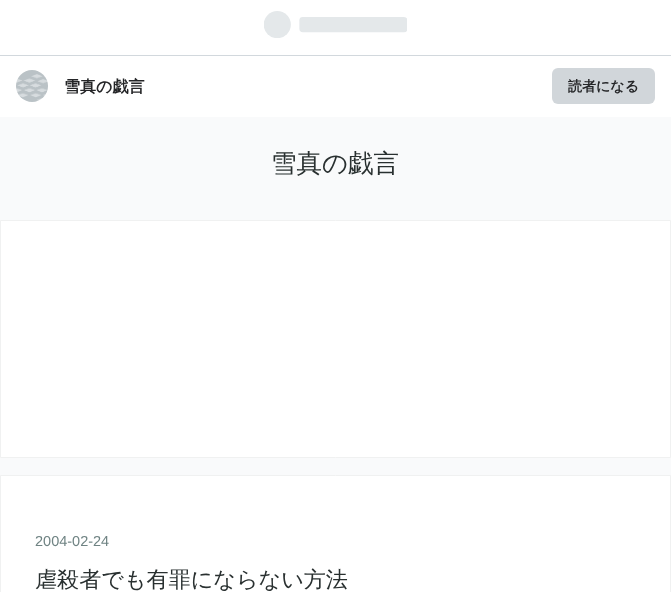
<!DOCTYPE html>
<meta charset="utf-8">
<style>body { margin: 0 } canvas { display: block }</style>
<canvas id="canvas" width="671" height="592"></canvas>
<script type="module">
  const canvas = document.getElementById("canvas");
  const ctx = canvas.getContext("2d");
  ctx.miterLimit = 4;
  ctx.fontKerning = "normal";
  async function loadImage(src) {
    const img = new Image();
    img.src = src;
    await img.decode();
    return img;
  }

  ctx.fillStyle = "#f9fafb";
  ctx.fillRect(0, 0, 671, 592);
  ctx.fillStyle = "#ffffff";
  ctx.fillRect(0, 0, 671, 55);
  ctx.fillStyle = "#d2d8dd";
  ctx.fillRect(0, 55, 671, 1);
  ctx.drawImage(await loadImage("img1.png"), 264, 11, 143, 27);
  ctx.fillStyle = "#ffffff";
  ctx.fillRect(0, 56, 671, 61);
  ctx.drawImage(await loadImage("img2.png"), 16, 70, 32, 32);
  ctx.font = "bold 16px WenQuanYi Zen Hei";
  ctx.fillStyle = "#242527";
  ctx.fillText("雪真の戯言", 64, 92);
  ctx.fillStyle = "#d1d6da";
  ctx.beginPath();
  ctx.roundRect(552, 68, 103, 36, 6);
  ctx.fill();
  ctx.font = "bold 14px WenQuanYi Zen Hei";
  ctx.fillStyle = "#242527";
  ctx.fillText("読者になる", 568, 91);
  ctx.font = "500 25.5px WenQuanYi Zen Hei";
  ctx.fillStyle = "#293030";
  ctx.fillText("雪真の戯言", 271, 172);
  ctx.fillStyle = "#ffffff";
  ctx.beginPath();
  ctx.rect(0.5, 220.5, 670, 237);
  ctx.fill();
  ctx.strokeStyle = "#f0f1f1";
  ctx.stroke();
  ctx.beginPath();
  ctx.rect(0.5, 475.5, 670, 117);
  ctx.fill();
  ctx.stroke();
  ctx.font = "14.5px Liberation Sans";
  ctx.fillStyle = "#6f8383";
  ctx.fillText("2004-02-24", 35, 546);
  ctx.font = "500 22.1px WenQuanYi Zen Hei";
  ctx.fillStyle = "#293030";
  ctx.fillText("虐殺者でも有罪にならない方法", 35, 587);
</script>
